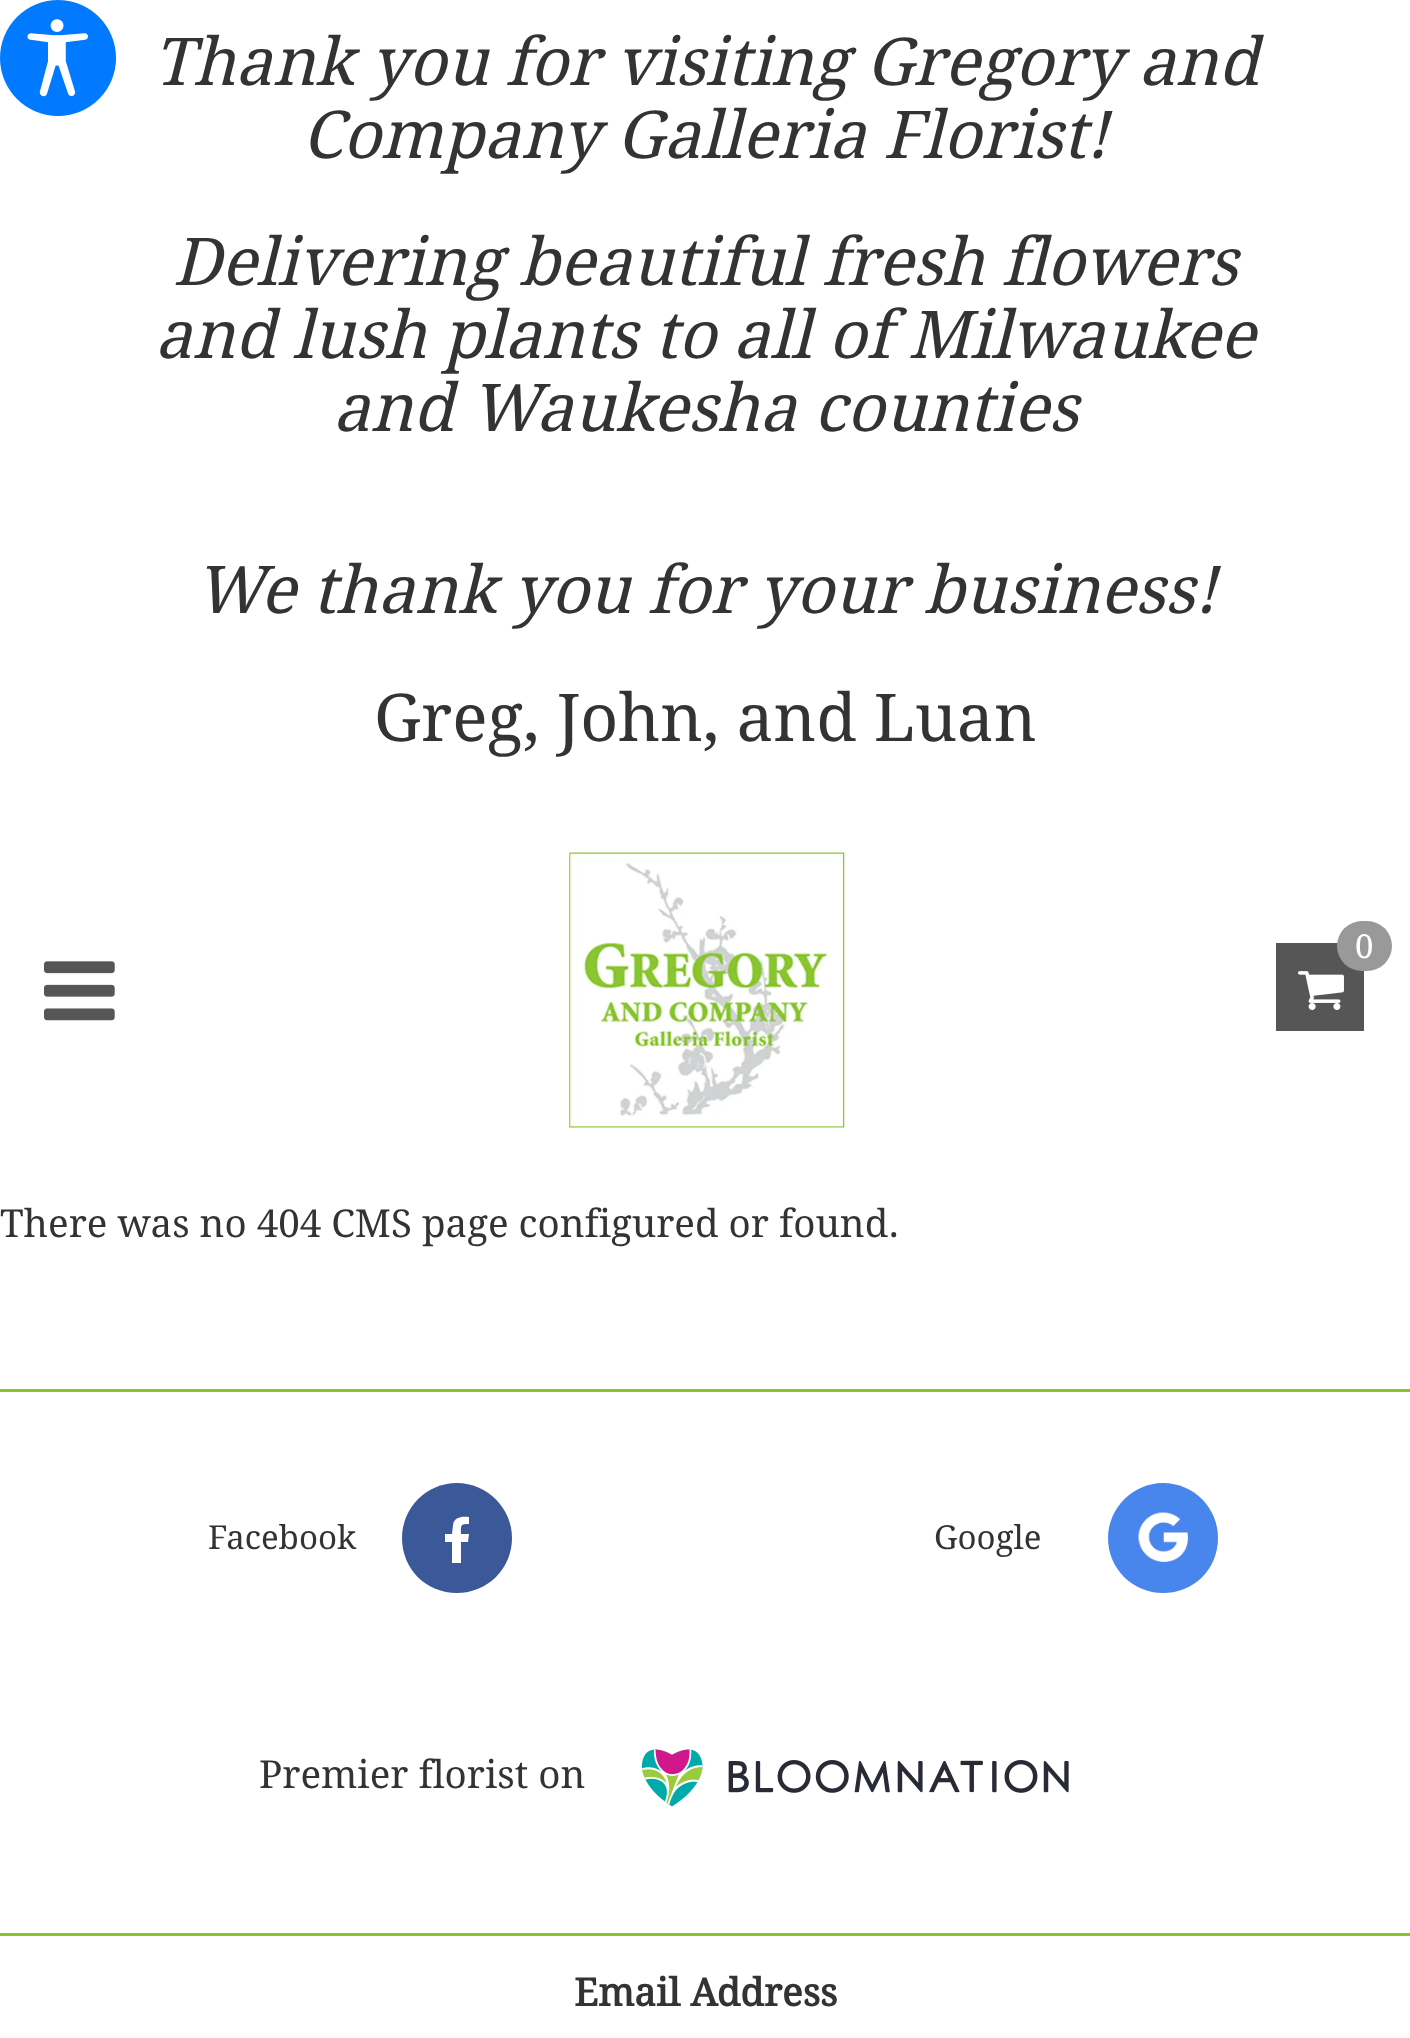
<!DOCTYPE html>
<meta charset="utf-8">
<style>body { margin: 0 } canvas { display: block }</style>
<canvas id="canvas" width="1410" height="2038"></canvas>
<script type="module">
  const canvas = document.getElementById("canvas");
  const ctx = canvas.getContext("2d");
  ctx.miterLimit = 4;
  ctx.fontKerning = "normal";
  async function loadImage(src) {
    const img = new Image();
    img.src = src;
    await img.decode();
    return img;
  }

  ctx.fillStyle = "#ffffff";
  ctx.fillRect(0, 0, 1410, 2038);
  ctx.drawImage(await loadImage("img1.png"), 0, 0, 116, 116);
  ctx.font = "italic 66px Droid Serif";
  ctx.fillStyle = "#333333";
  ctx.fillText("Thank you for visiting Gregory and", 153, 85);
  ctx.fillText("Company Galleria Florist!", 302, 158);
  ctx.fillText("Delivering beautiful fresh flowers", 173, 285);
  ctx.fillText("and lush plants to all of Milwaukee", 155, 358);
  ctx.fillText("and Waukesha counties", 333, 431);
  ctx.fillText("We thank you for your business!", 195, 613);
  ctx.font = "66px Droid Serif";
  ctx.fillText("Greg, John, and Luan", 374, 741);
  ctx.drawImage(await loadImage("img2.png"), 569, 852, 276, 276);
  ctx.fillStyle = "#565656";
  ctx.fillRect(1276, 943, 88, 88);
  ctx.fillStyle = "#999999";
  ctx.beginPath();
  ctx.roundRect(1337, 921, 55, 50, 25);
  ctx.fill();
  ctx.font = "33px Droid Serif";
  ctx.fillStyle = "#ffffff";
  ctx.fillText("0", 1355, 958);
  ctx.drawImage(await loadImage("img3.png"), 1298, 971, 46, 39);
  ctx.drawImage(await loadImage("img4.png"), 44, 961, 71, 60);
  ctx.font = "38.5px Droid Serif";
  ctx.fillStyle = "#333333";
  ctx.fillText("There was no 404 CMS page configured or found.", 0, 1237);
  ctx.fillStyle = "#89c428";
  ctx.fillRect(0, 1389, 1410, 3);
  ctx.fillRect(0, 1933, 1410, 3);
  ctx.font = "33px Droid Serif";
  ctx.fillStyle = "#333333";
  ctx.fillText("Facebook", 208, 1549);
  ctx.fillStyle = "#3b5998";
  ctx.beginPath();
  ctx.moveTo(512, 1538);
  ctx.bezierCurveTo(512, 1508, 487, 1483, 457, 1483);
  ctx.bezierCurveTo(426, 1483, 402, 1508, 402, 1538);
  ctx.bezierCurveTo(402, 1569, 426, 1593, 457, 1593);
  ctx.bezierCurveTo(487, 1593, 512, 1569, 512, 1538);
  ctx.closePath();
  ctx.fill();
  ctx.fillStyle = "#ffffff";
  ctx.beginPath();
  ctx.moveTo(469, 1517);
  ctx.bezierCurveTo(462, 1516, 454, 1517, 453, 1525);
  ctx.lineTo(452, 1534);
  ctx.lineTo(445, 1534);
  ctx.lineTo(445, 1542);
  ctx.lineTo(452, 1542);
  ctx.lineTo(452, 1563);
  ctx.lineTo(461, 1563);
  ctx.lineTo(461, 1542);
  ctx.lineTo(468, 1542);
  ctx.lineTo(469, 1534);
  ctx.lineTo(461, 1534);
  ctx.bezierCurveTo(461, 1525, 460, 1524, 469, 1524);
  ctx.closePath();
  ctx.fill();
  ctx.fillStyle = "#333333";
  ctx.fillText("Google", 934, 1549);
  ctx.fillStyle = "#4885ed";
  ctx.beginPath();
  ctx.moveTo(1218, 1538);
  ctx.bezierCurveTo(1218, 1508, 1194, 1483, 1163, 1483);
  ctx.bezierCurveTo(1133, 1483, 1108, 1508, 1108, 1538);
  ctx.bezierCurveTo(1108, 1569, 1133, 1593, 1163, 1593);
  ctx.bezierCurveTo(1194, 1593, 1218, 1569, 1218, 1538);
  ctx.closePath();
  ctx.fill();
  ctx.drawImage(await loadImage("img5.png"), 1138, 1512, 50, 50);
  ctx.font = "38.5px Droid Serif";
  ctx.fillStyle = "#333333";
  ctx.fillText("Premier florist on", 259, 1788);
  ctx.drawImage(await loadImage("img6.png"), 641, 1749, 428, 58);
  ctx.font = "bold 38.5px Droid Serif";
  ctx.fillText("Email Address", 574, 2006);
</script>
